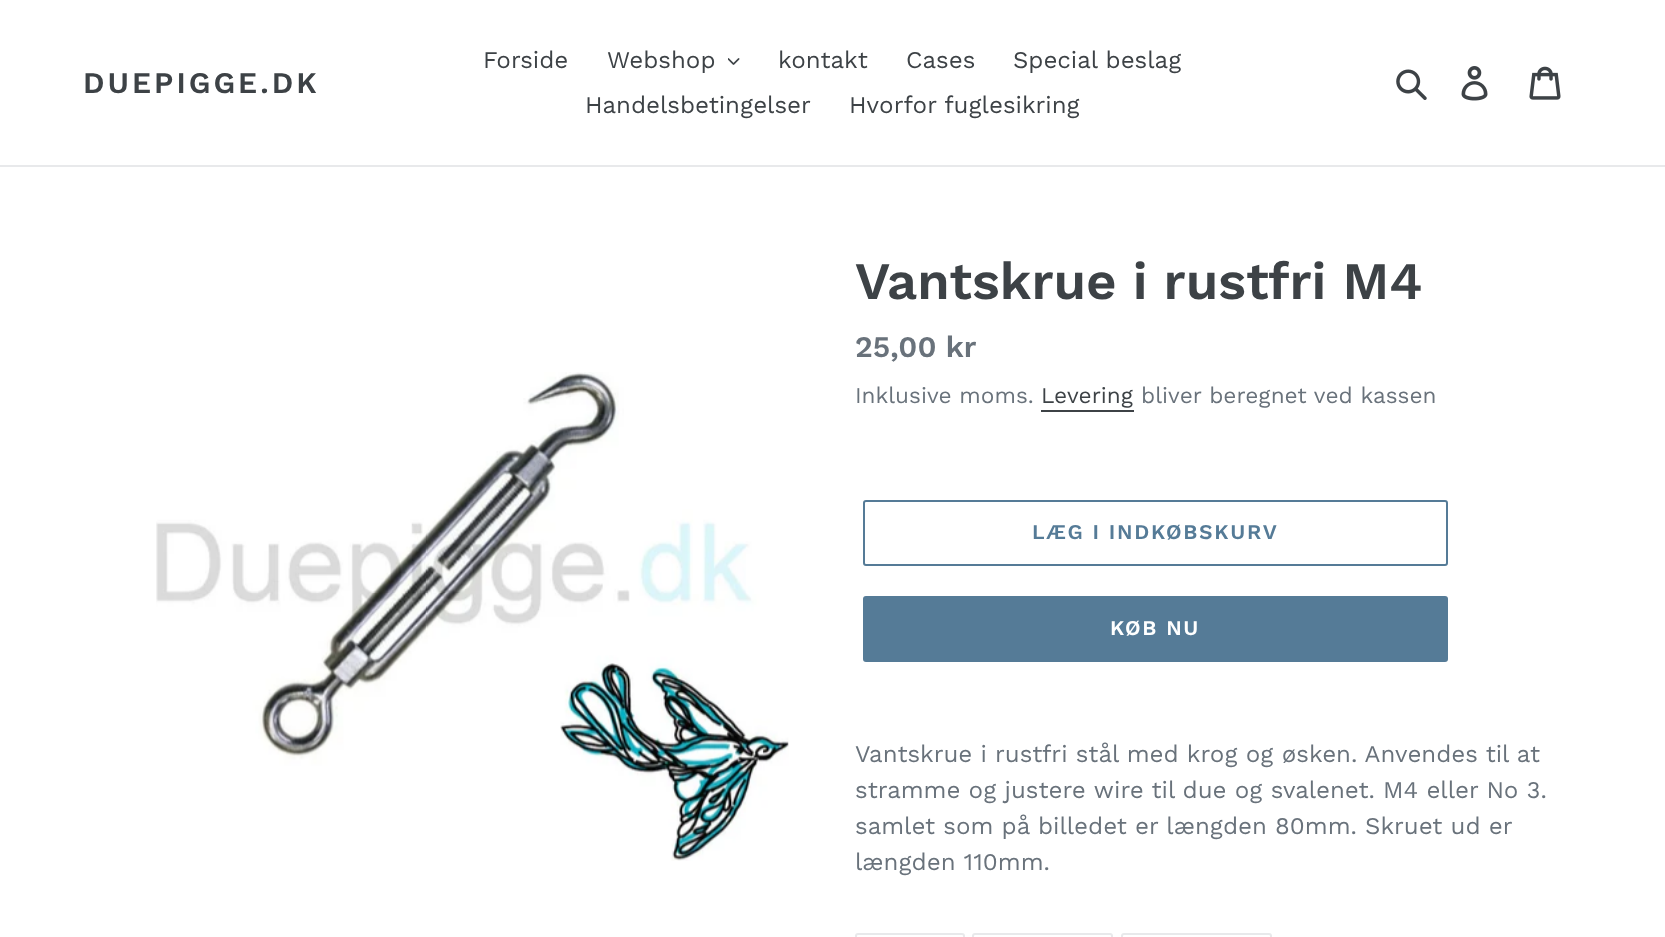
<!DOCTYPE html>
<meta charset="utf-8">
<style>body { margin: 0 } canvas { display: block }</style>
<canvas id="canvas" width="1665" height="937"></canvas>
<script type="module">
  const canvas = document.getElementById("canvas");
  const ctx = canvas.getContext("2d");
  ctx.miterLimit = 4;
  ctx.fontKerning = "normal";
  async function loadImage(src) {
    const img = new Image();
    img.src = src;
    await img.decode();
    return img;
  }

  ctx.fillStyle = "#ffffff";
  ctx.fillRect(0, 0, 1665, 937);
  ctx.fillStyle = "#e8e9eb";
  ctx.fillRect(0, 165, 1665, 2);
  ctx.letterSpacing = "3px";
  ctx.font = "600 30px Work Sans";
  ctx.fillStyle = "#3d4246";
  ctx.fillText("DUEPIGGE.DK", 83, 93);
  ctx.letterSpacing = "0px";
  ctx.font = "24px Work Sans";
  ctx.fillText("Forside", 483, 68);
  ctx.fillText("Webshop", 607, 68);
  ctx.drawImage(await loadImage("img1.png"), 728, 58, 12, 7);
  ctx.fillText("kontakt", 778, 68);
  ctx.fillText("Cases", 906, 68);
  ctx.fillText("Special beslag", 1013, 68);
  ctx.fillText("Handelsbetingelser", 585, 113);
  ctx.fillText("Hvorfor fuglesikring", 849, 113);
  ctx.drawImage(await loadImage("img2.png"), 1396, 69, 31, 31);
  ctx.drawImage(await loadImage("img3.png"), 1461, 66, 27, 35);
  ctx.drawImage(await loadImage("img4.png"), 1529, 66, 32, 34);
  ctx.drawImage(await loadImage("img5.png"), 156, 372, 633, 489);
  ctx.font = "600 52.5px Work Sans";
  ctx.fillText("Vantskrue i rustfri M4", 855, 299);
  ctx.font = "600 30px Work Sans";
  ctx.fillStyle = "#69727b";
  ctx.fillText("25,00 kr", 855, 357);
  ctx.font = "22.5px Work Sans";
  ctx.fillText("Inklusive moms.", 855, 403);
  ctx.fillStyle = "#3d4246";
  ctx.fillText("Levering", 1041, 403);
  ctx.fillRect(1041, 410, 93, 2);
  ctx.fillStyle = "#69727b";
  ctx.fillText("bliver beregnet ved kassen", 1141, 403);
  ctx.beginPath();
  ctx.roundRect(864, 501, 583, 64, 2);
  ctx.strokeStyle = "#557b97";
  ctx.lineWidth = 2;
  ctx.stroke();
  ctx.letterSpacing = "1.7px";
  ctx.font = "600 21px Work Sans";
  ctx.fillStyle = "#557b97";
  ctx.fillText("LÆG I INDKØBSKURV", 1032, 539);
  ctx.beginPath();
  ctx.roundRect(863, 596, 585, 66, 3);
  ctx.fill();
  ctx.fillStyle = "#ffffff";
  ctx.fillText("KØB NU", 1110, 635);
  ctx.letterSpacing = "0px";
  ctx.font = "24px Work Sans";
  ctx.fillStyle = "#69727b";
  ctx.fillText("Vantskrue i rustfri stål med krog og øsken. Anvendes til at", 855, 762);
  ctx.fillText("stramme og justere wire til due og svalenet. M4 eller No 3.", 855, 798);
  ctx.fillText("samlet som på billedet er længden 80mm. Skruet ud er", 855, 834);
  ctx.fillText("længden 110mm.", 855, 870);
  ctx.beginPath();
  ctx.roundRect(856, 934, 108, 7, 2);
  ctx.strokeStyle = "#e8e9eb";
  ctx.stroke();
  ctx.beginPath();
  ctx.roundRect(973, 934, 139, 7, 2);
  ctx.stroke();
  ctx.beginPath();
  ctx.roundRect(1122, 934, 149, 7, 2);
  ctx.stroke();
</script>
